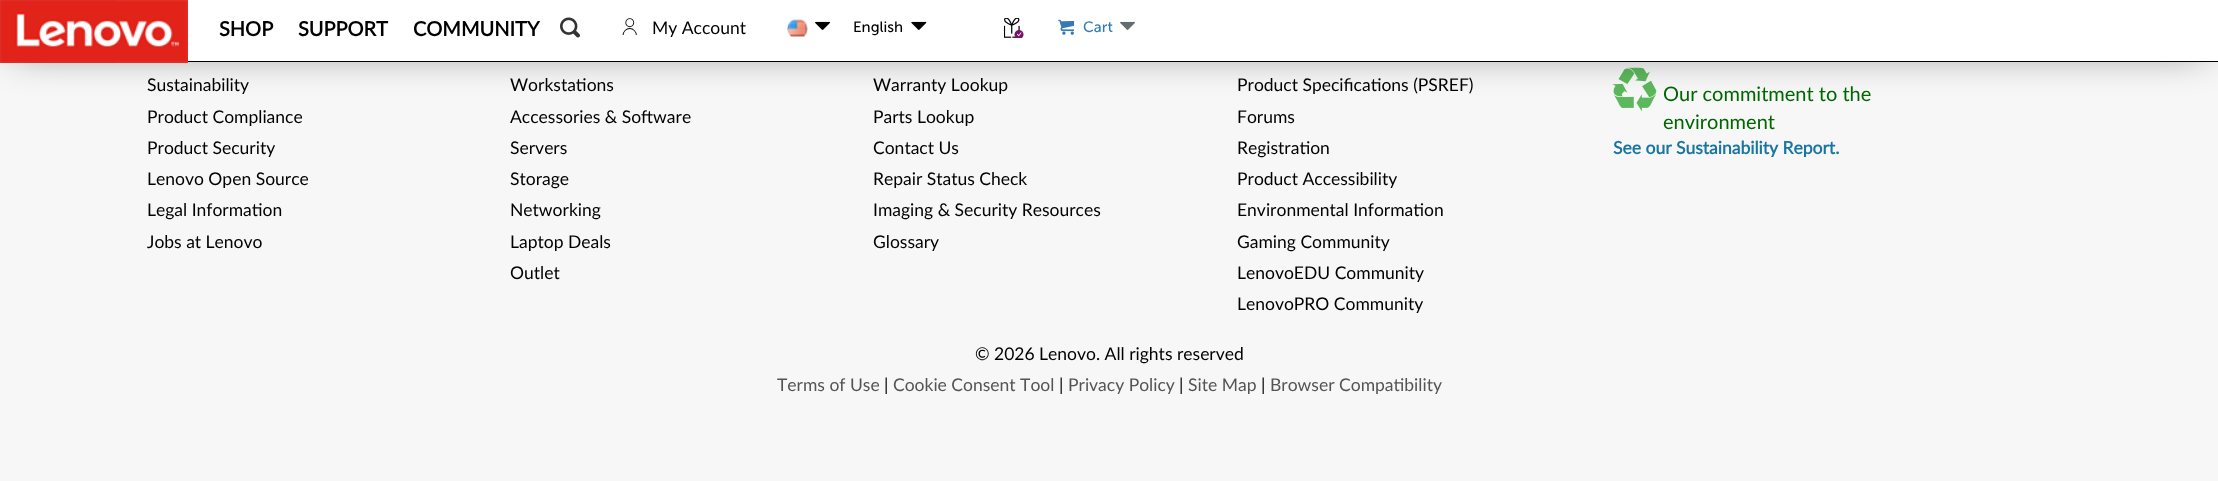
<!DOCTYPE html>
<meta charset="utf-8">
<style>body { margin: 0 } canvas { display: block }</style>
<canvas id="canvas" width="2218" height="481"></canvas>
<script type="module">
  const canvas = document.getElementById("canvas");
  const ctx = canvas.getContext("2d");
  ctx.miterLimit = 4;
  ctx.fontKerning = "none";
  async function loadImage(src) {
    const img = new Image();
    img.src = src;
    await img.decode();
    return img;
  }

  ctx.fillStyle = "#f7f7f7";
  ctx.fillRect(0, 0, 2218, 481);
  ctx.drawImage(await loadImage("img9.png"), 1612, 67, 45, 45);
  ctx.fillStyle = "rgba(0, 0, 0, 0.5)";
  ctx.filter = "blur(20px)";
  ctx.beginPath();
  ctx.rect(13, 13, 2193, 37);
  ctx.fill();
  ctx.filter = "none";
  ctx.fillStyle = "#ffffff";
  ctx.fillRect(188, 0, 2030, 61);
  ctx.fillStyle = "#000000";
  ctx.fillRect(188, 61, 2030, 1);
  ctx.drawImage(await loadImage("img1.png"), 0, 0, 188, 63);
  ctx.font = "bold 20px Lato";
  ctx.fillText("SHOP", 219, 36);
  ctx.fillText("SUPPORT", 298, 36);
  ctx.fillText("COMMUNITY", 413, 36);
  ctx.drawImage(await loadImage("img2.png"), 560, 17, 20, 21);
  ctx.font = "17.5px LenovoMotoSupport";
  ctx.fillText("󡑆", 621, 34);
  ctx.font = "17.5px Lato";
  ctx.fillText("My Account", 652, 34);
  ctx.drawImage(await loadImage("img3.png"), 787, 19, 22, 18);
  ctx.drawImage(await loadImage("img4.png"), 815, 21, 15, 9);
  ctx.font = "15px Museo Sans";
  ctx.fillText("English", 853, 32);
  ctx.drawImage(await loadImage("img5.png"), 911, 21, 16, 9);
  ctx.drawImage(await loadImage("img6.png"), 1004, 18, 20, 20);
  ctx.drawImage(await loadImage("img7.png"), 1058, 19, 17, 16);
  ctx.fillStyle = "#337ab7";
  ctx.fillText("Cart", 1083, 32);
  ctx.drawImage(await loadImage("img8.png"), 1120, 21, 15, 9);
  ctx.font = "17.5px Lato";
  ctx.fillStyle = "#000000";
  ctx.fillText("Sustainability", 147, 91);
  ctx.fillText("Product Compliance", 147, 123);
  ctx.fillText("Product Security", 147, 154);
  ctx.fillText("Lenovo Open Source", 147, 185);
  ctx.fillText("Legal Information", 147, 216);
  ctx.fillText("Jobs at Lenovo", 147, 248);
  ctx.fillText("Workstations", 510, 91);
  ctx.fillText("Accessories & Software", 510, 123);
  ctx.fillText("Servers", 510, 154);
  ctx.fillText("Storage", 510, 185);
  ctx.fillText("Networking", 510, 216);
  ctx.fillText("Laptop Deals", 510, 248);
  ctx.fillText("Outlet", 510, 279);
  ctx.fillText("Warranty Lookup", 873, 91);
  ctx.fillText("Parts Lookup", 873, 123);
  ctx.fillText("Contact Us", 873, 154);
  ctx.fillText("Repair Status Check", 873, 185);
  ctx.fillText("Imaging & Security Resources", 873, 216);
  ctx.fillText("Glossary", 873, 248);
  ctx.fillText("Product Specifications (PSREF)", 1237, 91);
  ctx.fillText("Forums", 1237, 123);
  ctx.fillText("Registration", 1237, 154);
  ctx.fillText("Product Accessibility", 1237, 185);
  ctx.fillText("Environmental Information", 1237, 216);
  ctx.fillText("Gaming Community", 1237, 248);
  ctx.fillText("LenovoEDU Community", 1237, 279);
  ctx.fillText("LenovoPRO Community", 1237, 310);
  ctx.font = "20px Lato";
  ctx.fillStyle = "#006600";
  ctx.fillText("Our commitment to the", 1663, 101);
  ctx.fillText("environment", 1663, 129);
  ctx.font = "bold 17.5px Lato";
  ctx.fillStyle = "#1976a1";
  ctx.fillText("See our Sustainability Report.", 1613, 154);
  ctx.font = "17.5px Lato";
  ctx.fillStyle = "#000000";
  ctx.fillText("© 2026 Lenovo. All rights reserved", 975, 360);
  ctx.fillStyle = "#545454";
  ctx.fillText("Terms of Use", 777, 391);
  ctx.fillStyle = "#000000";
  ctx.fillText("|", 884, 391);
  ctx.fillStyle = "#545454";
  ctx.fillText("Cookie Consent Tool", 893, 391);
  ctx.fillStyle = "#000000";
  ctx.fillText("|", 1059, 391);
  ctx.fillStyle = "#545454";
  ctx.fillText("Privacy Policy", 1068, 391);
  ctx.fillStyle = "#000000";
  ctx.fillText("|", 1179, 391);
  ctx.fillStyle = "#545454";
  ctx.fillText("Site Map", 1188, 391);
  ctx.fillStyle = "#000000";
  ctx.fillText("|", 1261, 391);
  ctx.fillStyle = "#545454";
  ctx.fillText("Browser Compatibility", 1270, 391);
</script>
